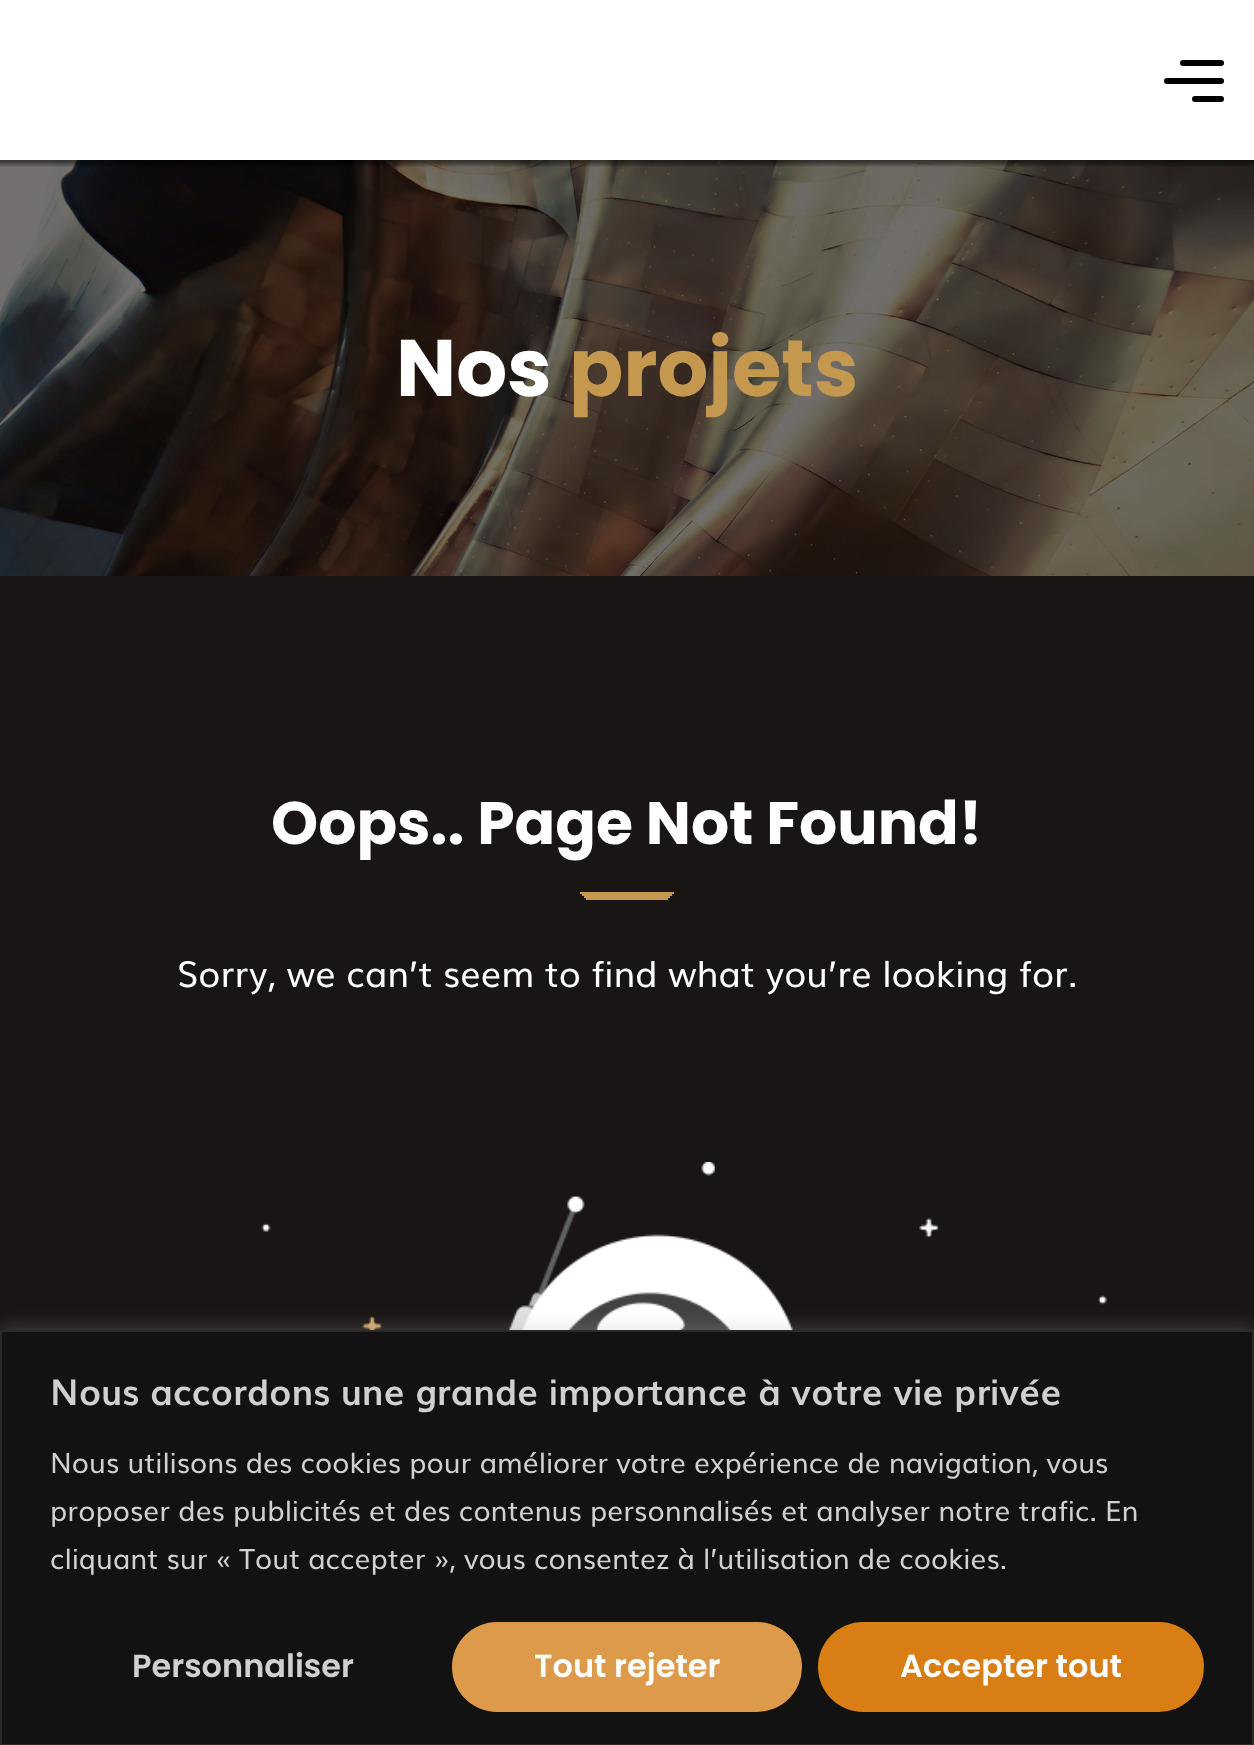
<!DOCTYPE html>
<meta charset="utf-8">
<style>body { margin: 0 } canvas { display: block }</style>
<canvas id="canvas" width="1254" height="1745"></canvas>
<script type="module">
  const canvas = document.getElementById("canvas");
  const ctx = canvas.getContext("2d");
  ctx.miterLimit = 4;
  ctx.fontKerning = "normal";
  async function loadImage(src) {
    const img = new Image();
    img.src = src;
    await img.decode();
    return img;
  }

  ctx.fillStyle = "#ffffff";
  ctx.fillRect(0, 0, 1254, 1745);
  ctx.drawImage(await loadImage("img1.png"), 0, 160, 1254, 416);
  ctx.save();
  ctx.beginPath();
  ctx.rect(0, 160, 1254, 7);
  ctx.clip();
  ctx.fillStyle = "rgba(0, 0, 0, 0.3)";
  ctx.filter = "blur(2px)";
  ctx.beginPath();
  ctx.rect(-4, -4, 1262, 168);
  ctx.fill();
  ctx.filter = "none";
  ctx.filter = "blur(2px)";
  ctx.beginPath();
  ctx.rect(-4, -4, 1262, 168);
  ctx.fill();
  ctx.filter = "none";
  ctx.restore();
  ctx.fillStyle = "#000000";
  ctx.beginPath();
  ctx.roundRect(1180, 60, 44, 6, 3);
  ctx.fill();
  ctx.beginPath();
  ctx.roundRect(1164, 78, 60, 6, 3);
  ctx.fill();
  ctx.beginPath();
  ctx.roundRect(1192, 96, 32, 6, 3);
  ctx.fill();
  ctx.font = "bold 80px Poppins";
  ctx.fillStyle = "#ffffff";
  ctx.fillText("Nos", 396, 396);
  ctx.fillStyle = "#c5984f";
  ctx.fillText("projets", 569, 396);
  ctx.fillStyle = "#191514";
  ctx.fillRect(0, 576, 1254, 754);
  ctx.font = "bold 60px Poppins";
  ctx.fillStyle = "#ffffff";
  ctx.fillText("Oops.. Page Not Found!", 271, 844);
  ctx.fillStyle = "#c5984f";
  ctx.fillRect(580, 892, 94, 2);
  ctx.fillRect(582, 894, 90, 2);
  ctx.fillRect(584, 896, 86, 2);
  ctx.fillRect(586, 898, 82, 2);
  ctx.font = "36px Muli";
  ctx.fillStyle = "#ffffff";
  ctx.fillText("Sorry, we can’t seem to find what you’re looking for.", 177, 987);
  ctx.drawImage(await loadImage("img2.png"), 261, 1162, 846, 168);
  ctx.fillStyle = "rgba(172, 171, 171, 0.3)";
  ctx.filter = "blur(10px)";
  ctx.beginPath();
  ctx.rect(0, 1328, 1254, 416);
  ctx.fill();
  ctx.filter = "none";
  ctx.fillStyle = "#121212";
  ctx.beginPath();
  ctx.rect(1, 1331, 1252, 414);
  ctx.fill();
  ctx.strokeStyle = "#2a2a2a";
  ctx.lineWidth = 2;
  ctx.stroke();
  ctx.font = "bold 36px Muli";
  ctx.fillStyle = "#d0d0d0";
  ctx.fillText("Nous accordons une grande importance à votre vie privée", 50, 1405);
  ctx.font = "28px Muli";
  ctx.fillText("Nous utilisons des cookies pour améliorer votre expérience de navigation, vous", 50, 1473);
  ctx.fillText("proposer des publicités et des contenus personnalisés et analyser notre trafic. En", 50, 1521);
  ctx.fillText("cliquant sur « Tout accepter », vous consentez à l’utilisation de cookies.", 50, 1569);
  ctx.font = "600 32px Poppins";
  ctx.fillText("Personnaliser", 132, 1677);
  ctx.fillStyle = "#de9a4b";
  ctx.beginPath();
  ctx.roundRect(452, 1622, 350, 90, 45);
  ctx.fill();
  ctx.fillStyle = "#ffffff";
  ctx.fillText("Tout rejeter", 534, 1677);
  ctx.fillStyle = "#d97e14";
  ctx.beginPath();
  ctx.roundRect(818, 1622, 386, 90, 45);
  ctx.fill();
  ctx.fillStyle = "#ffffff";
  ctx.fillText("Accepter tout", 900, 1677);
</script>
